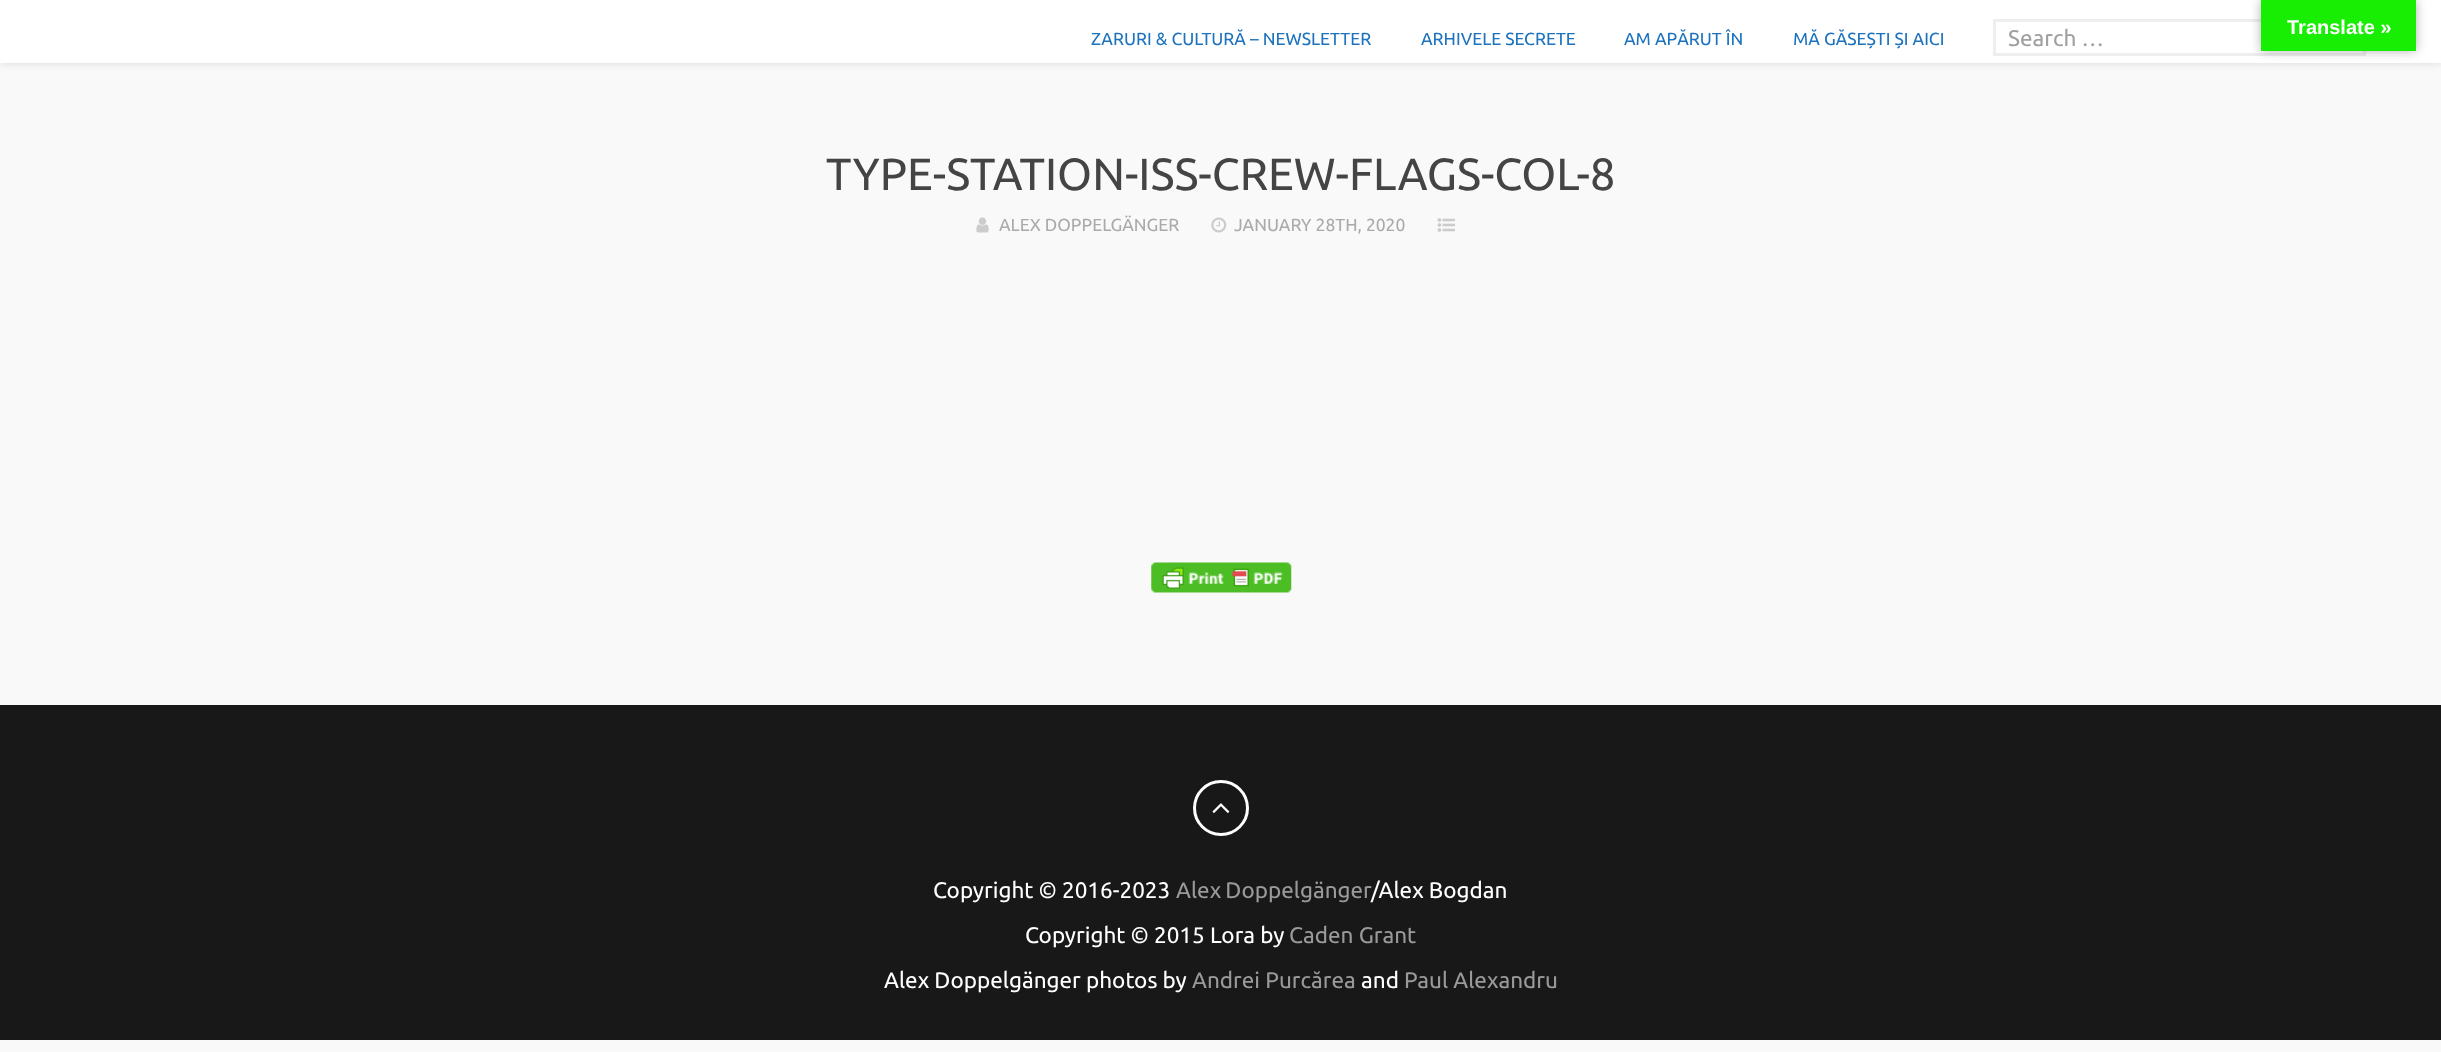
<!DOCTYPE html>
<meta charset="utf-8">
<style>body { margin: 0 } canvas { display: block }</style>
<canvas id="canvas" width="2441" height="1052"></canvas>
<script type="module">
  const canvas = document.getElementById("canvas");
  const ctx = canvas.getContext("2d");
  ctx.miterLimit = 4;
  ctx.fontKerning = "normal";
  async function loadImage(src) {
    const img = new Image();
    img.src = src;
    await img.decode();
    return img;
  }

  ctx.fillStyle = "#f9f9f9";
  ctx.fillRect(0, 0, 2441, 1052);
  ctx.fillStyle = "rgba(50, 50, 50, 0.1)";
  ctx.filter = "blur(3px)";
  ctx.beginPath();
  ctx.rect(0, 3, 2441, 62);
  ctx.fill();
  ctx.filter = "none";
  ctx.fillStyle = "#ffffff";
  ctx.fillRect(0, 0, 2441, 63);
  ctx.font = "17.5px Ubuntu";
  ctx.fillStyle = "#1e73be";
  ctx.fillText("ZARURI & CULTURĂ – NEWSLETTER", 1091, 45);
  ctx.fillText("ARHIVELE SECRETE", 1421, 45);
  ctx.fillText("AM APĂRUT ÎN", 1624, 45);
  ctx.fillText("MĂ GĂSEȘTI ȘI AICI", 1793, 45);
  ctx.strokeStyle = "#eeeeee";
  ctx.lineWidth = 3;
  ctx.strokeRect(1994.5, 20.5, 370, 34);
  ctx.font = "22.5px Ubuntu";
  ctx.fillStyle = "#a0a0a0";
  ctx.fillText("Search …", 2008, 46);
  ctx.fillStyle = "rgba(0, 0, 0, 0.3)";
  ctx.filter = "blur(5.5px)";
  ctx.beginPath();
  ctx.rect(2261, 0, 155, 51);
  ctx.fill();
  ctx.filter = "none";
  ctx.fillStyle = "#18ed04";
  ctx.fillRect(2261, 0, 155, 51);
  ctx.font = "bold 20px Liberation Sans";
  ctx.fillStyle = "#ffffff";
  ctx.fillText("Translate »", 2287, 34);
  ctx.font = "45px Ubuntu";
  ctx.fillStyle = "#444444";
  ctx.fillText("TYPE-STATION-ISS-CREW-FLAGS-COL-8", 826, 190);
  ctx.drawImage(await loadImage("img1.png"), 976, 217, 13, 16);
  ctx.font = "17.5px Ubuntu";
  ctx.fillStyle = "#aaaaaa";
  ctx.fillText("ALEX DOPPELGÄNGER", 999, 231);
  ctx.drawImage(await loadImage("img2.png"), 1211, 217, 16, 16);
  ctx.fillText("JANUARY 28TH, 2020", 1234, 231);
  ctx.drawImage(await loadImage("img3.png"), 1437, 218, 18, 14);
  ctx.drawImage(await loadImage("img4.png"), 1151, 562, 141, 31);
  ctx.fillStyle = "#181818";
  ctx.fillRect(0, 705, 2441, 335);
  ctx.beginPath();
  ctx.arc(1221, 808, 26.5, 0, Math.PI * 2);
  ctx.strokeStyle = "#ffffff";
  ctx.stroke();
  ctx.drawImage(await loadImage("img5.png"), 1212, 803, 18, 10);
  ctx.font = "22.5px Ubuntu";
  ctx.fillStyle = "#ffffff";
  ctx.fillText("Copyright © 2016-2023", 933, 898);
  ctx.wordSpacing = "-1px";
  ctx.fillStyle = "#999999";
  ctx.fillText("Alex Doppelgänger", 1176, 898);
  ctx.wordSpacing = "0px";
  ctx.fillStyle = "#ffffff";
  ctx.fillText("/Alex Bogdan", 1371, 898);
  ctx.fillText("Copyright © 2015 Lora by", 1025, 943);
  ctx.fillStyle = "#999999";
  ctx.fillText("Caden Grant", 1289, 943);
  ctx.fillStyle = "#ffffff";
  ctx.fillText("Alex Doppelgänger photos by", 884, 988);
  ctx.fillStyle = "#999999";
  ctx.fillText("Andrei Purcărea", 1192, 988);
  ctx.fillStyle = "#ffffff";
  ctx.fillText("and", 1361, 988);
  ctx.fillStyle = "#999999";
  ctx.fillText("Paul Alexandru", 1404, 988);
</script>
